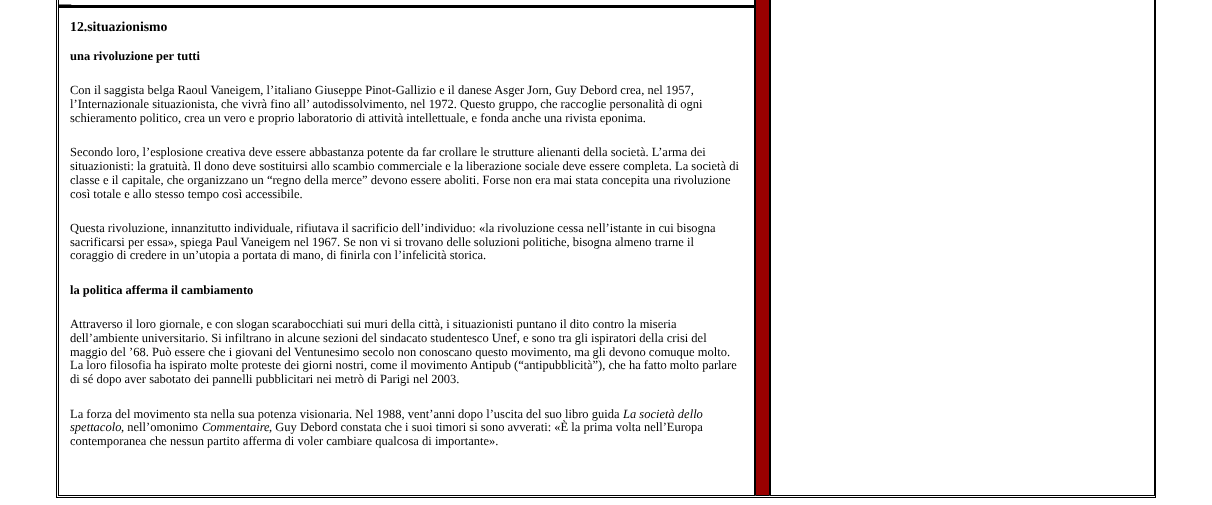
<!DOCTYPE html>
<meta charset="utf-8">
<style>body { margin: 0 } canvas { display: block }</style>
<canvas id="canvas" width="1212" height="505"></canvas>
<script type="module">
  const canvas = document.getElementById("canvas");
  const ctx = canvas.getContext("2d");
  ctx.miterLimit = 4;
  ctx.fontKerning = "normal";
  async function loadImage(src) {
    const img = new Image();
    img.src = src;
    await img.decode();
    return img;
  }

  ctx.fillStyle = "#ffffff";
  ctx.fillRect(0, 0, 1212, 505);
  ctx.strokeStyle = "#000000";
  ctx.strokeRect(56.5, -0.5, 1099, 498);
  ctx.strokeRect(58.5, -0.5, 696, 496);
  ctx.fillStyle = "#000000";
  ctx.fillRect(59, 5, 695, 3);
  ctx.drawImage(await loadImage("img1.png"), 59, 4, 13, 1);
  ctx.font = "bold 13.75px Liberation Serif";
  ctx.fillText("12.situazionismo", 70, 31);
  ctx.font = "bold 12.5px Liberation Serif";
  ctx.fillText("una rivoluzione per tutti", 70, 60);
  ctx.font = "12.5px Liberation Serif";
  ctx.fillText("Con il saggista belga Raoul Vaneigem, l’italiano Giuseppe Pinot-Gallizio e il danese Asger Jorn, Guy Debord crea, nel 1957,", 70, 94);
  ctx.fillText("l’Internazionale situazionista, che vivrà fino all’ autodissolvimento, nel 1972. Questo gruppo, che raccoglie personalità di ogni", 70, 108);
  ctx.fillText("schieramento politico, crea un vero e proprio laboratorio di attività intellettuale, e fonda anche una rivista eponima.", 70, 122);
  ctx.fillText("Secondo loro, l’esplosione creativa deve essere abbastanza potente da far crollare le strutture alienanti della società. L’arma dei", 70, 156);
  ctx.fillText("situazionisti: la gratuità. Il dono deve sostituirsi allo scambio commerciale e la liberazione sociale deve essere completa. La società di", 70, 170);
  ctx.fillText("classe e il capitale, che organizzano un “regno della merce” devono essere aboliti. Forse non era mai stata concepita una rivoluzione", 70, 184);
  ctx.fillText("così totale e allo stesso tempo così accessibile.", 70, 198);
  ctx.fillText("Questa rivoluzione, innanzitutto individuale, rifiutava il sacrificio dell’individuo: «la rivoluzione cessa nell’istante in cui bisogna", 70, 232);
  ctx.fillText("sacrificarsi per essa», spiega Paul Vaneigem nel 1967. Se non vi si trovano delle soluzioni politiche, bisogna almeno trarne il", 70, 246);
  ctx.fillText("coraggio di credere in un’utopia a portata di mano, di finirla con l’infelicità storica.", 70, 259);
  ctx.font = "bold 12.5px Liberation Serif";
  ctx.fillText("la politica afferma il cambiamento", 70, 294);
  ctx.font = "12.5px Liberation Serif";
  ctx.fillText("Attraverso il loro giornale, e con slogan scarabocchiati sui muri della città, i situazionisti puntano il dito contro la miseria", 70, 328);
  ctx.fillText("dell’ambiente universitario. Si infiltrano in alcune sezioni del sindacato studentesco Unef, e sono tra gli ispiratori della crisi del", 70, 342);
  ctx.fillText("maggio del ’68. Può essere che i giovani del Ventunesimo secolo non conoscano questo movimento, ma gli devono comuque molto.", 70, 356);
  ctx.fillText("La loro filosofia ha ispirato molte proteste dei giorni nostri, come il movimento Antipub (“antipubblicità”), che ha fatto molto parlare", 70, 369);
  ctx.fillText("di sé dopo aver sabotato dei pannelli pubblicitari nei metrò di Parigi nel 2003.", 70, 383);
  ctx.fillText("La forza del movimento sta nella sua potenza visionaria. Nel 1988, vent’anni dopo l’uscita del suo libro guida", 70, 418);
  ctx.font = "italic 12.5px Liberation Serif";
  ctx.fillText("La società dello", 623, 418);
  ctx.fillText("spettacolo", 70, 431);
  ctx.font = "12.5px Liberation Serif";
  ctx.fillText(", nell’omonimo", 121, 431);
  ctx.font = "italic 12.5px Liberation Serif";
  ctx.fillText("Commentaire", 202, 431);
  ctx.font = "12.5px Liberation Serif";
  ctx.fillText(", Guy Debord constata che i suoi timori si sono avverati: «È la prima volta nell’Europa", 269, 431);
  ctx.fillText("contemporanea che nessun partito afferma di voler cambiare qualcosa di importante».", 70, 445);
  ctx.fillStyle = "#990000";
  ctx.beginPath();
  ctx.rect(755.5, -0.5, 14, 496);
  ctx.fill();
  ctx.stroke();
  ctx.strokeRect(770.5, -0.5, 384, 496);
</script>
